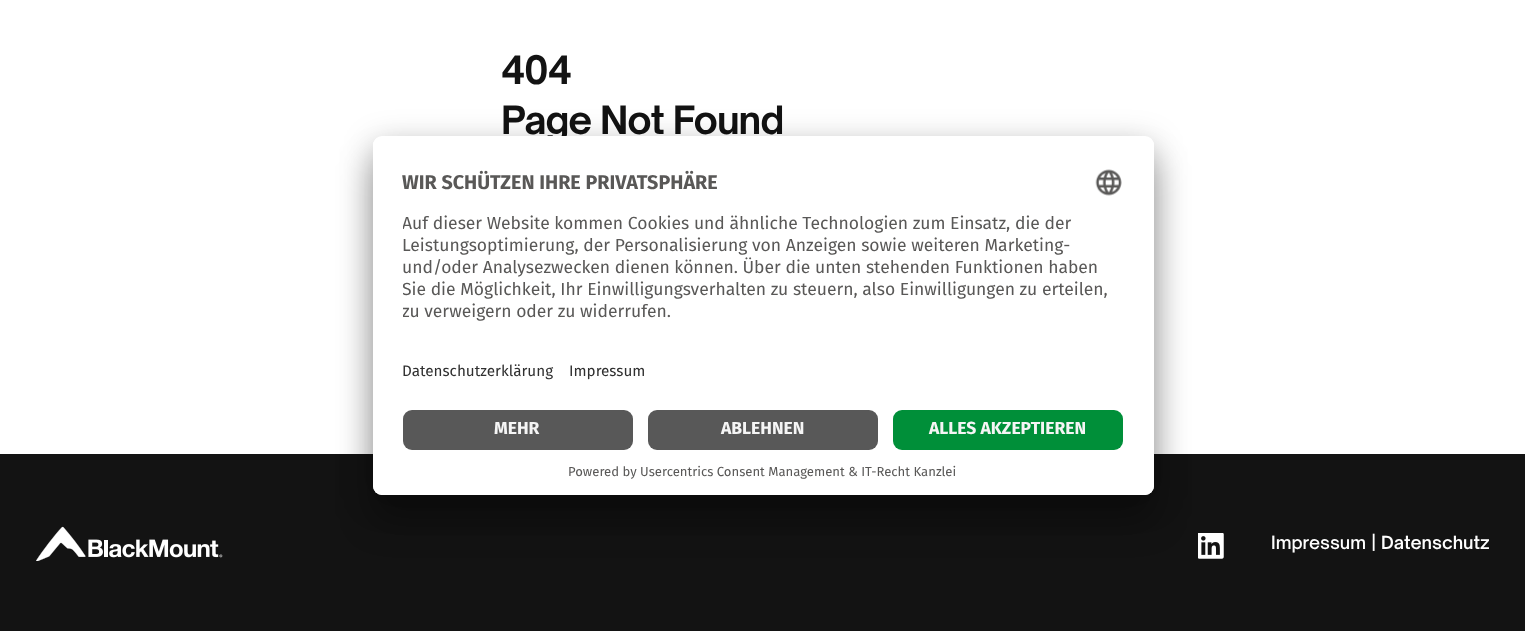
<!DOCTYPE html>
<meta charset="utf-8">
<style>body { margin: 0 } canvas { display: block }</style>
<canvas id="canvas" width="1525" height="631"></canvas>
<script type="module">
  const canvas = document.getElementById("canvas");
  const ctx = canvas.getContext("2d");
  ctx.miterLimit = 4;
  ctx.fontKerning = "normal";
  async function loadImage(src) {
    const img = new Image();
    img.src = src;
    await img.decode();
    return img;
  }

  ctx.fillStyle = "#ffffff";
  ctx.fillRect(0, 0, 1525, 631);
  ctx.letterSpacing = "-1.1px";
  ctx.font = "bold 37.5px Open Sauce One";
  ctx.fillStyle = "#131313";
  ctx.fillText("404", 501, 84);
  ctx.fillText("Page Not Found", 501, 134);
  ctx.fillRect(0, 454, 1525, 177);
  ctx.drawImage(await loadImage("img3.png"), 1198, 533, 26, 26);
  ctx.fillStyle = "rgba(0, 0, 0, 0.3)";
  ctx.filter = "blur(17.5px)";
  ctx.beginPath();
  ctx.roundRect(373, 161, 781, 359, 9);
  ctx.fill();
  ctx.filter = "none";
  ctx.fillStyle = "rgba(0, 0, 0, 0.22)";
  ctx.filter = "blur(16px)";
  ctx.beginPath();
  ctx.roundRect(373, 143, 781, 358, 9);
  ctx.fill();
  ctx.filter = "none";
  ctx.fillStyle = "#ffffff";
  ctx.beginPath();
  ctx.roundRect(373, 136, 781, 359, 9);
  ctx.fill();
  ctx.save();
  ctx.beginPath();
  ctx.roundRect(373, 136, 781, 359, 9);
  ctx.clip();
  ctx.beginPath();
  ctx.roundRect(373, 136, 781, 264, [9, 9, 0, 0]);
  ctx.clip();
  ctx.fillRect(373, 138, 781, 262);
  ctx.restore();
  ctx.letterSpacing = "0px";
  ctx.font = "bold 19.75px Fira Sans";
  ctx.fillStyle = "#595857";
  ctx.fillText("WIR SCHÜTZEN IHRE PRIVATSPHÄRE", 402, 189);
  ctx.drawImage(await loadImage("img1.png"), 1095, 169, 27, 27);
  ctx.save();
  ctx.beginPath();
  ctx.rect(403, 208, 721, 120);
  ctx.clip();
  ctx.font = "17.5px Fira Sans";
  ctx.fillText("Auf dieser Website kommen Cookies und ähnliche Technologien zum Einsatz, die der", 402, 229);
  ctx.restore();
  ctx.font = "17.5px Fira Sans";
  ctx.fillText("Leistungsoptimierung, der Personalisierung von Anzeigen sowie weiteren Marketing-", 402, 251);
  ctx.fillText("und/oder Analysezwecken dienen können. Über die unten stehenden Funktionen haben", 402, 273);
  ctx.save();
  ctx.beginPath();
  ctx.rect(403, 208, 721, 120);
  ctx.clip();
  ctx.fillText("Sie die Möglichkeit, Ihr Einwilligungsverhalten zu steuern, also Einwilligungen zu erteilen,", 402, 295);
  ctx.fillText("zu verweigern oder zu widerrufen.", 402, 317);
  ctx.restore();
  ctx.font = "15.25px Fira Sans";
  ctx.fillStyle = "#303030";
  ctx.fillText("Datenschutzerklärung", 402, 376);
  ctx.fillText("Impressum", 569, 376);
  ctx.fillStyle = "#ffffff";
  ctx.beginPath();
  ctx.roundRect(373, 400, 781, 95, [0, 0, 9, 9]);
  ctx.fill();
  ctx.fillStyle = "#585858";
  ctx.beginPath();
  ctx.roundRect(403, 410, 230, 40, 9);
  ctx.fill();
  ctx.font = "bold 17.5px Fira Sans";
  ctx.fillStyle = "#f5f5f5";
  ctx.fillText("MEHR", 494, 434);
  ctx.fillStyle = "#585858";
  ctx.beginPath();
  ctx.roundRect(648, 410, 230, 40, 9);
  ctx.fill();
  ctx.fillStyle = "#f5f5f5";
  ctx.fillText("ABLEHNEN", 721, 434);
  ctx.fillStyle = "#008f39";
  ctx.beginPath();
  ctx.roundRect(893, 410, 230, 40, 9);
  ctx.fill();
  ctx.fillStyle = "#f5f5f5";
  ctx.fillText("ALLES AKZEPTIEREN", 929, 434);
  ctx.font = "13.1px Fira Sans";
  ctx.fillStyle = "#595857";
  ctx.fillText("Powered by Usercentrics Consent Management & IT-Recht Kanzlei", 568, 476);
  ctx.drawImage(await loadImage("img2.png"), 36, 526, 187, 35);
  ctx.font = "500 17.5px Open Sauce One";
  ctx.fillStyle = "#ffffff";
  ctx.fillText("Impressum |", 1271, 549);
  ctx.font = "600 17.5px Open Sauce One";
  ctx.fillText("Datenschutz", 1381, 549);
</script>
